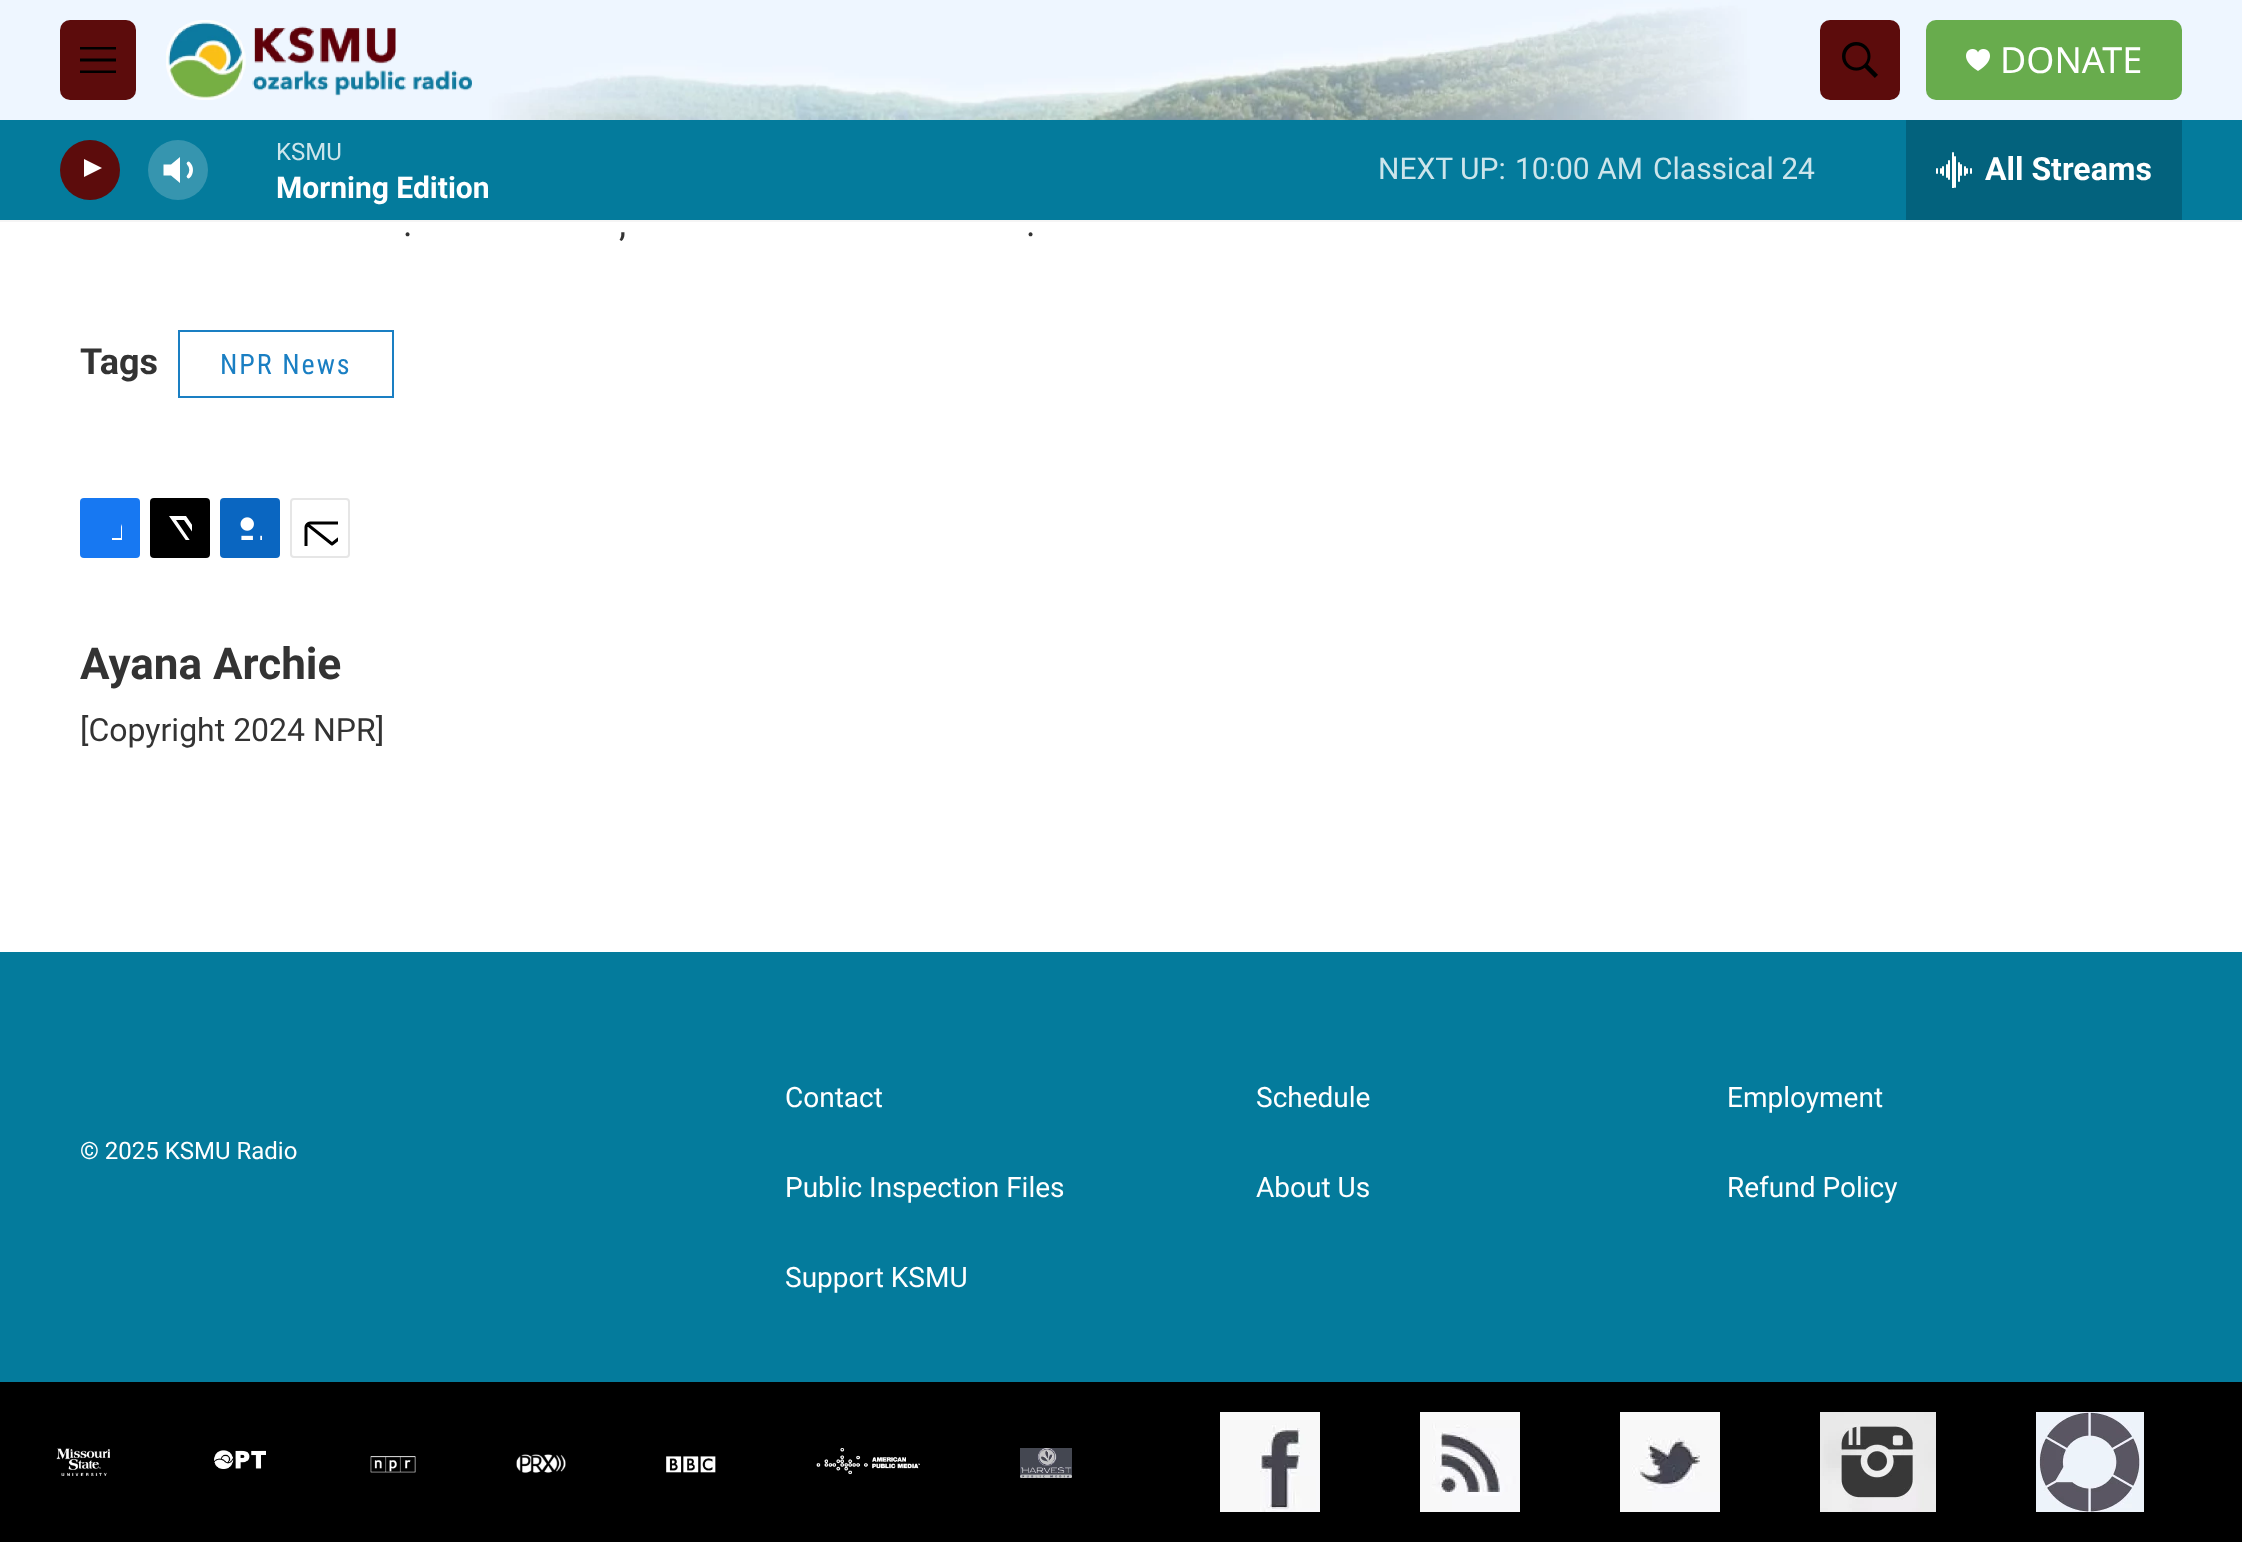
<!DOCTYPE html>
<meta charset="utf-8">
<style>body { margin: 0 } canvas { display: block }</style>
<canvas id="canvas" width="2242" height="1542"></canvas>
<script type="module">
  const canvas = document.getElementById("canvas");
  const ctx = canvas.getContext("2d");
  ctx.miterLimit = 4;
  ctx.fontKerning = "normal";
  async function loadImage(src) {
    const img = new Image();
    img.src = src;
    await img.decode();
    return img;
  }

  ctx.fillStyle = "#ffffff";
  ctx.fillRect(0, 0, 2242, 1542);
  ctx.fillStyle = "#f5f5f5";
  ctx.fillRect(0, 220, 2242, 2);
  ctx.drawImage(await loadImage("img1.png"), 0, 0, 2242, 120);
  ctx.fillStyle = "#5c0c0c";
  ctx.beginPath();
  ctx.roundRect(60, 20, 76, 80, 10);
  ctx.fill();
  ctx.fillStyle = "#000000";
  ctx.beginPath();
  ctx.moveTo(80, 61.5);
  ctx.lineTo(80, 58.5);
  ctx.lineTo(116, 58.5);
  ctx.lineTo(116, 61.5);
  ctx.closePath();
  ctx.moveTo(80, 49.5);
  ctx.lineTo(80, 47);
  ctx.lineTo(116, 47);
  ctx.lineTo(116, 49.5);
  ctx.closePath();
  ctx.moveTo(80, 73);
  ctx.lineTo(80, 70.5);
  ctx.lineTo(116, 70.5);
  ctx.lineTo(116, 73);
  ctx.closePath();
  ctx.fill("evenodd");
  ctx.drawImage(await loadImage("img2.png"), 166, 20, 306, 80);
  ctx.fillStyle = "#5c0c0c";
  ctx.beginPath();
  ctx.roundRect(1820, 20, 80, 80, 10);
  ctx.fill();
  ctx.drawImage(await loadImage("img3.png"), 1842, 42, 36, 36);
  ctx.fillStyle = "#68ac4d";
  ctx.beginPath();
  ctx.roundRect(1926, 20, 256, 80, 10);
  ctx.fill();
  ctx.drawImage(await loadImage("img4.png"), 1966, 49, 24, 22);
  ctx.font = "36px Noto Sans";
  ctx.fillStyle = "#ffffff";
  ctx.fillText("DONATE", 2000, 73);
  ctx.fillStyle = "#047b9c";
  ctx.fillRect(0, 120, 2242, 100);
  ctx.fillStyle = "#5c0c0c";
  ctx.beginPath();
  ctx.arc(90, 170, 30, 0, Math.PI * 2);
  ctx.fill();
  ctx.save();
  ctx.beginPath();
  ctx.rect(84, 156, 23, 30);
  ctx.clip();
  ctx.fillStyle = "#ffffff";
  ctx.beginPath();
  ctx.moveTo(83, 158.5);
  ctx.lineTo(102, 168);
  ctx.lineTo(83, 177.5);
  ctx.closePath();
  ctx.fill();
  ctx.restore();
  ctx.fillStyle = "#ffffff";
  ctx.beginPath();
  ctx.moveTo(180, 157);
  ctx.lineTo(171, 164.5);
  ctx.lineTo(163.5, 164.5);
  ctx.lineTo(163.5, 175.5);
  ctx.lineTo(171, 175.5);
  ctx.lineTo(180, 183);
  ctx.closePath();
  ctx.fill();
  ctx.beginPath();
  ctx.moveTo(188.5, 163.5);
  ctx.bezierCurveTo(192, 167, 192, 173, 188.5, 176.5);
  ctx.strokeStyle = "#ffffff";
  ctx.lineWidth = 3.7;
  ctx.lineCap = "round";
  ctx.lineJoin = "round";
  ctx.stroke();
  ctx.fillStyle = "rgba(255, 255, 255, 0.2)";
  ctx.beginPath();
  ctx.arc(178, 170, 30, 0, Math.PI * 2);
  ctx.fill();
  ctx.font = "24px Roboto";
  ctx.fillStyle = "#cde5eb";
  ctx.fillText("KSMU", 276, 160);
  ctx.font = "bold 30px 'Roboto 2'";
  ctx.fillStyle = "#ffffff";
  ctx.fillText("Morning Edition", 276, 198);
  ctx.font = "30px Roboto";
  ctx.fillStyle = "#cde5eb";
  ctx.fillText("NEXT UP:", 1378, 179);
  ctx.fillText("10:00 AM", 1515, 179);
  ctx.fillText("Classical 24", 1653, 179);
  ctx.fillStyle = "#03627d";
  ctx.fillRect(1906, 120, 276, 100);
  ctx.drawImage(await loadImage("img5.png"), 1936, 152, 36, 36);
  ctx.font = "bold 32px 'Roboto 2'";
  ctx.fillStyle = "#ffffff";
  ctx.fillText("All Streams", 1985, 180);
  ctx.font = "36px Roboto";
  ctx.fillStyle = "#333333";
  ctx.fillText(".", 403, 236);
  ctx.fillText(",", 619, 236);
  ctx.fillText(".", 1026, 236);
  ctx.font = "bold 36px Roboto";
  ctx.fillText("Tags", 80, 374);
  ctx.strokeStyle = "#1a7fc3";
  ctx.lineWidth = 2;
  ctx.lineJoin = "miter";
  ctx.strokeRect(179, 331, 214, 66);
  ctx.letterSpacing = "2px";
  ctx.font = "28px Roboto Condensed";
  ctx.fillStyle = "#1a7fc3";
  ctx.fillText("NPR News", 220, 374);
  ctx.fillStyle = "#1778f2";
  ctx.beginPath();
  ctx.roundRect(80, 498, 60, 60, 4);
  ctx.fill();
  ctx.save();
  ctx.beginPath();
  ctx.rect(98, 516, 24, 24);
  ctx.clip();
  ctx.fillStyle = "#ffffff";
  ctx.beginPath();
  ctx.moveTo(131, 558);
  ctx.lineTo(121, 558);
  ctx.lineTo(121, 548);
  ctx.lineTo(112, 548);
  ctx.lineTo(112, 538);
  ctx.lineTo(121, 538);
  ctx.lineTo(121, 527);
  ctx.bezierCurveTo(123, 518, 132, 516, 140, 517);
  ctx.lineTo(140, 526);
  ctx.bezierCurveTo(129, 526, 131, 529, 131, 538);
  ctx.lineTo(140, 538);
  ctx.lineTo(140, 543);
  ctx.lineTo(139, 548);
  ctx.lineTo(131, 548);
  ctx.closePath();
  ctx.fill();
  ctx.restore();
  ctx.fillStyle = "#000000";
  ctx.beginPath();
  ctx.roundRect(150, 498, 60, 60, 4);
  ctx.fill();
  ctx.save();
  ctx.beginPath();
  ctx.rect(168, 516, 24, 24);
  ctx.clip();
  ctx.fillStyle = "#ffffff";
  ctx.beginPath();
  ctx.moveTo(204, 541);
  ctx.lineTo(210, 550);
  ctx.bezierCurveTo(210, 552, 211, 555, 209, 556);
  ctx.lineTo(184, 520);
  ctx.lineTo(176, 520);
  ctx.lineTo(202, 558);
  ctx.lineTo(197, 558);
  ctx.lineTo(194, 553);
  ctx.lineTo(190, 558);
  ctx.lineTo(184, 558);
  ctx.lineTo(192, 549);
  ctx.lineTo(169, 516);
  ctx.lineTo(186, 516);
  ctx.lineTo(201, 538);
  ctx.lineTo(210, 528);
  ctx.lineTo(210, 534);
  ctx.closePath();
  ctx.fill();
  ctx.restore();
  ctx.fillStyle = "#0a66c1";
  ctx.beginPath();
  ctx.roundRect(220, 498, 60, 60, 4);
  ctx.fill();
  ctx.drawImage(await loadImage("img6.png"), 240, 517, 22, 23);
  ctx.beginPath();
  ctx.roundRect(291, 499, 58, 58, 3);
  ctx.strokeStyle = "#e6e6e6";
  ctx.stroke();
  ctx.save();
  ctx.beginPath();
  ctx.rect(302, 510, 36, 36);
  ctx.clip();
  ctx.beginPath();
  ctx.moveTo(358, 554);
  ctx.bezierCurveTo(358, 556, 356, 557.5, 354, 557.5);
  ctx.lineTo(310, 557.5);
  ctx.bezierCurveTo(308, 557.5, 306, 556, 306, 554);
  ctx.lineTo(306, 527);
  ctx.bezierCurveTo(306, 525, 308, 523, 310, 523);
  ctx.lineTo(354, 523);
  ctx.bezierCurveTo(356, 523, 358, 525, 358, 527);
  ctx.closePath();
  ctx.moveTo(356.5, 524.5);
  ctx.lineTo(332, 544);
  ctx.lineTo(307.5, 524.5);
  ctx.strokeStyle = "#000000";
  ctx.lineWidth = 3;
  ctx.lineJoin = "round";
  ctx.stroke();
  ctx.restore();
  ctx.letterSpacing = "0px";
  ctx.font = "bold 44px Roboto";
  ctx.fillStyle = "#333333";
  ctx.fillText("Ayana Archie", 80, 679);
  ctx.font = "32px Roboto";
  ctx.fillText("[Copyright 2024 NPR]", 80, 741);
  ctx.fillStyle = "#047b9c";
  ctx.fillRect(0, 952, 2242, 430);
  ctx.font = "24px Roboto";
  ctx.fillStyle = "#ffffff";
  ctx.fillText("© 2025 KSMU Radio", 80, 1159);
  ctx.font = "28px Roboto";
  ctx.fillText("Contact", 785, 1107);
  ctx.fillText("Schedule", 1256, 1107);
  ctx.fillText("Employment", 1727, 1107);
  ctx.fillText("Public Inspection Files", 785, 1197);
  ctx.fillText("About Us", 1256, 1197);
  ctx.fillText("Refund Policy", 1727, 1197);
  ctx.fillText("Support KSMU", 785, 1287);
  ctx.fillStyle = "#000000";
  ctx.fillRect(0, 1382, 2242, 160);
  ctx.drawImage(await loadImage("img7.png"), 56, 1448, 54, 28);
  ctx.drawImage(await loadImage("img8.png"), 214, 1450, 52, 19);
  ctx.drawImage(await loadImage("img9.png"), 370, 1456, 46, 17);
  ctx.drawImage(await loadImage("img10.png"), 516, 1454, 50, 19);
  ctx.drawImage(await loadImage("img11.png"), 666, 1456, 50, 17);
  ctx.drawImage(await loadImage("img12.png"), 816, 1448, 104, 27);
  ctx.drawImage(await loadImage("img13.png"), 1020, 1448, 52, 30);
  ctx.drawImage(await loadImage("img14.png"), 1220, 1412, 100, 100);
  ctx.drawImage(await loadImage("img15.png"), 1420, 1412, 100, 100);
  ctx.drawImage(await loadImage("img16.png"), 1620, 1412, 100, 100);
  ctx.drawImage(await loadImage("img17.png"), 1820, 1412, 116, 100);
  ctx.drawImage(await loadImage("img18.png"), 2036, 1412, 108, 100);
</script>
